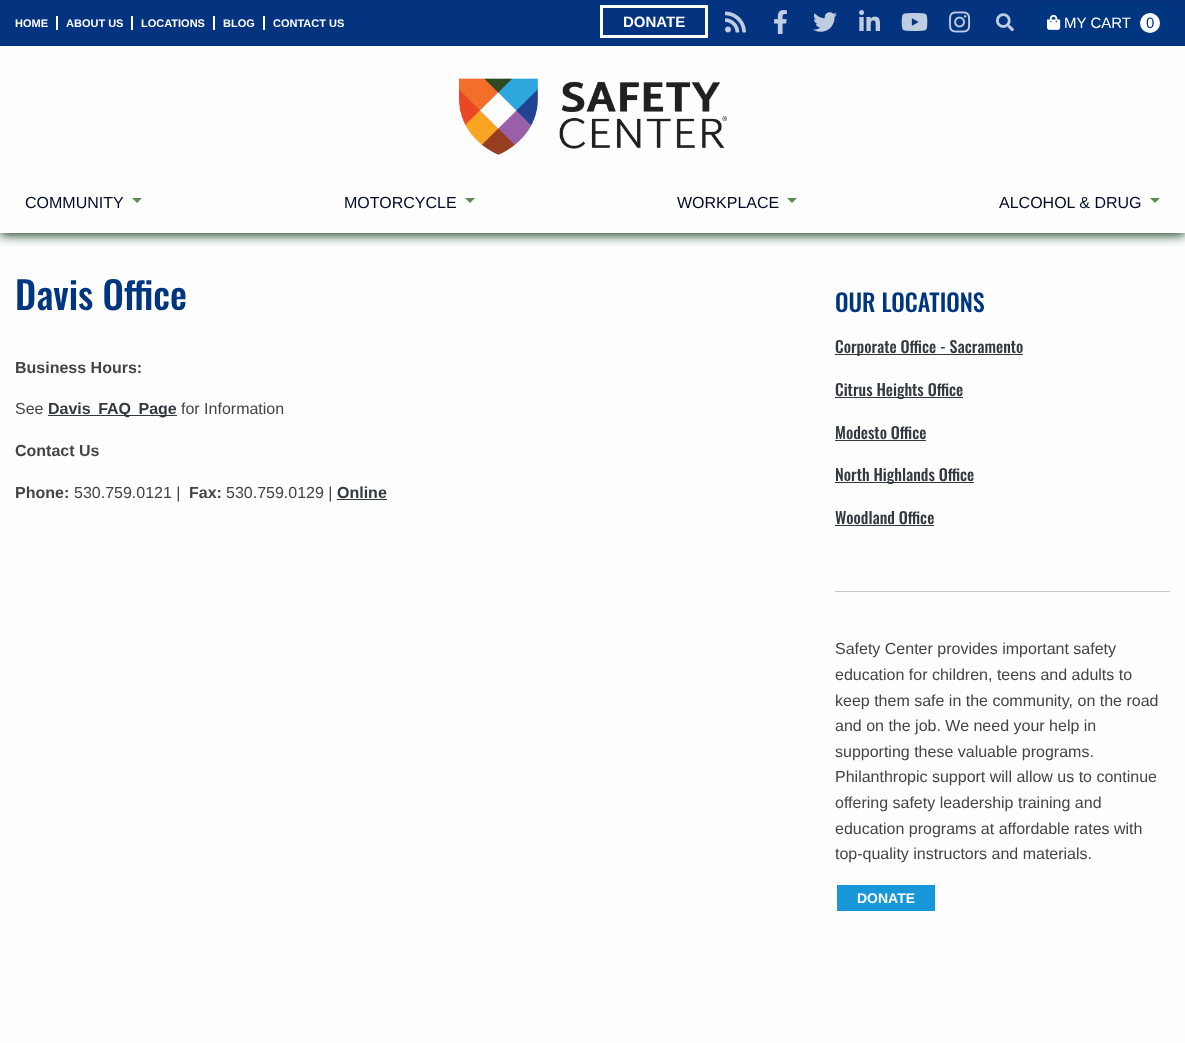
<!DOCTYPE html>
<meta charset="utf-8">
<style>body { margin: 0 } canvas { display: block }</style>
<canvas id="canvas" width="1185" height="1043"></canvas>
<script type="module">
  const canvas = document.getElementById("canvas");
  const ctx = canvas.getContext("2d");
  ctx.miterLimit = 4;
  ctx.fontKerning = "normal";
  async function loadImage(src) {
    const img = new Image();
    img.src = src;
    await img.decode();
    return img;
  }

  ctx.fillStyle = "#fefefe";
  ctx.fillRect(0, 0, 1185, 1043);
  ctx.save();
  ctx.beginPath();
  ctx.rect(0, 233, 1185, 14);
  ctx.clip();
  ctx.fillStyle = "#0a3613";
  ctx.filter = "blur(6px)";
  ctx.beginPath();
  ctx.rect(0, 2, 1185, 233);
  ctx.fill();
  ctx.filter = "none";
  ctx.restore();
  ctx.fillStyle = "#043480";
  ctx.fillRect(0, 0, 1185, 46);
  ctx.font = "bold 11px Liberation Sans";
  ctx.fillStyle = "#ffffff";
  ctx.fillText("HOME", 15, 27);
  ctx.fillRect(56, 16, 2, 14);
  ctx.fillText("ABOUT US", 66, 27);
  ctx.fillRect(131, 16, 2, 14);
  ctx.fillText("LOCATIONS", 141, 27);
  ctx.fillRect(213, 16, 2, 14);
  ctx.fillText("BLOG", 223, 27);
  ctx.fillRect(263, 16, 2, 14);
  ctx.fillText("CONTACT US", 273, 27);
  ctx.strokeStyle = "#ffffff";
  ctx.lineWidth = 3;
  ctx.strokeRect(601.5, 6.5, 105, 30);
  ctx.font = "bold 15px Liberation Sans";
  ctx.fillText("DONATE", 623, 27);
  ctx.drawImage(await loadImage("img1.png"), 725, 11, 21, 22);
  ctx.drawImage(await loadImage("img2.png"), 774, 10, 13, 24);
  ctx.drawImage(await loadImage("img3.png"), 813, 12, 24, 20);
  ctx.drawImage(await loadImage("img4.png"), 859, 10, 21, 21);
  ctx.drawImage(await loadImage("img5.png"), 901, 13, 27, 18);
  ctx.drawImage(await loadImage("img6.png"), 949, 11, 22, 22);
  ctx.drawImage(await loadImage("img7.png"), 996, 13, 18, 19);
  ctx.fillStyle = "#003680";
  ctx.fillRect(1037, 5, 133, 35);
  ctx.drawImage(await loadImage("img8.png"), 1047, 14, 14, 16);
  ctx.font = "15px Liberation Sans";
  ctx.fillStyle = "#ffffff";
  ctx.fillText("MY CART", 1064, 28);
  ctx.beginPath();
  ctx.arc(1150, 23, 10, 0, Math.PI * 2);
  ctx.fill();
  ctx.fillStyle = "#003680";
  ctx.fillText("0", 1146, 28);
  ctx.drawImage(await loadImage("img9.png"), 459, 78, 268, 77);
  ctx.font = "16px Liberation Sans";
  ctx.fillStyle = "#000a26";
  ctx.fillText("COMMUNITY", 25, 208);
  ctx.fillStyle = "#638655";
  ctx.beginPath();
  ctx.moveTo(132, 198);
  ctx.lineTo(142, 198);
  ctx.lineTo(137, 203);
  ctx.closePath();
  ctx.fill();
  ctx.fillStyle = "#000a26";
  ctx.fillText("MOTORCYCLE", 344, 208);
  ctx.fillStyle = "#638655";
  ctx.beginPath();
  ctx.moveTo(465, 198);
  ctx.lineTo(475, 198);
  ctx.lineTo(470, 203);
  ctx.closePath();
  ctx.fill();
  ctx.fillStyle = "#000a26";
  ctx.fillText("WORKPLACE", 677, 208);
  ctx.fillStyle = "#638655";
  ctx.beginPath();
  ctx.moveTo(787, 198);
  ctx.lineTo(797, 198);
  ctx.lineTo(792, 203);
  ctx.closePath();
  ctx.fill();
  ctx.fillStyle = "#000a26";
  ctx.fillText("ALCOHOL & DRUG", 999, 208);
  ctx.fillStyle = "#638655";
  ctx.beginPath();
  ctx.moveTo(1150, 198);
  ctx.lineTo(1160, 198);
  ctx.lineTo(1155, 203);
  ctx.closePath();
  ctx.fill();
  ctx.font = "500 38px Oswald";
  ctx.fillStyle = "#003680";
  ctx.fillText("Davis Office", 15, 310);
  ctx.font = "bold 16px Liberation Sans";
  ctx.fillStyle = "#444444";
  ctx.fillText("Business Hours:", 15, 373);
  ctx.font = "16px Liberation Sans";
  ctx.fillText("See", 15, 414);
  ctx.fillStyle = "#333941";
  ctx.fillRect(48, 415, 129, 1);
  ctx.wordSpacing = "3px";
  ctx.font = "bold 16px Liberation Sans";
  ctx.fillText("Davis FAQ Page", 48, 414);
  ctx.wordSpacing = "0px";
  ctx.font = "16px Liberation Sans";
  ctx.fillStyle = "#444444";
  ctx.fillText("for Information", 181, 414);
  ctx.font = "bold 16px Liberation Sans";
  ctx.fillText("Contact Us", 15, 456);
  ctx.fillText("Phone:", 15, 498);
  ctx.font = "16px Liberation Sans";
  ctx.fillText("530.759.0121 |", 74, 498);
  ctx.font = "bold 16px Liberation Sans";
  ctx.fillText("Fax:", 189, 498);
  ctx.font = "16px Liberation Sans";
  ctx.fillText("530.759.0129 |", 226, 498);
  ctx.font = "bold 16px Liberation Sans";
  ctx.fillStyle = "#333941";
  ctx.fillText("Online", 337, 498);
  ctx.fillRect(337, 499, 50, 1);
  ctx.font = "500 24px Oswald";
  ctx.fillStyle = "#003680";
  ctx.fillText("OUR LOCATIONS", 835, 312);
  ctx.fillStyle = "#333941";
  ctx.fillRect(835, 354, 188, 1);
  ctx.font = "500 16px Oswald";
  ctx.fillText("Corporate Office - Sacramento", 835, 353);
  ctx.fillRect(835, 397, 128, 1);
  ctx.fillText("Citrus Heights Office", 835, 396);
  ctx.fillText("Modesto Office", 835, 439);
  ctx.fillRect(835, 440, 91, 1);
  ctx.fillRect(835, 482, 139, 1);
  ctx.fillText("North Highlands Office", 835, 481);
  ctx.fillText("Woodland Office", 835, 524);
  ctx.fillRect(835, 525, 99, 1);
  ctx.fillStyle = "#cacaca";
  ctx.fillRect(835, 591, 335, 1);
  ctx.font = "16px Liberation Sans";
  ctx.fillStyle = "#444444";
  ctx.fillText("Safety Center provides important safety", 835, 654);
  ctx.fillText("education for children, teens and adults to", 835, 680);
  ctx.fillText("keep them safe in the community, on the road", 835, 706);
  ctx.fillText("and on the job. We need your help in", 835, 731);
  ctx.fillText("supporting these valuable programs.", 835, 757);
  ctx.fillText("Philanthropic support will allow us to continue", 835, 782);
  ctx.fillText("offering safety leadership training and", 835, 808);
  ctx.fillText("education programs at affordable rates with", 835, 834);
  ctx.fillText("top-quality instructors and materials.", 835, 859);
  ctx.fillStyle = "#1897d8";
  ctx.fillRect(837, 885, 98, 26);
  ctx.font = "bold 14px Liberation Sans";
  ctx.fillStyle = "#ffffff";
  ctx.fillText("DONATE", 857, 903);
</script>
